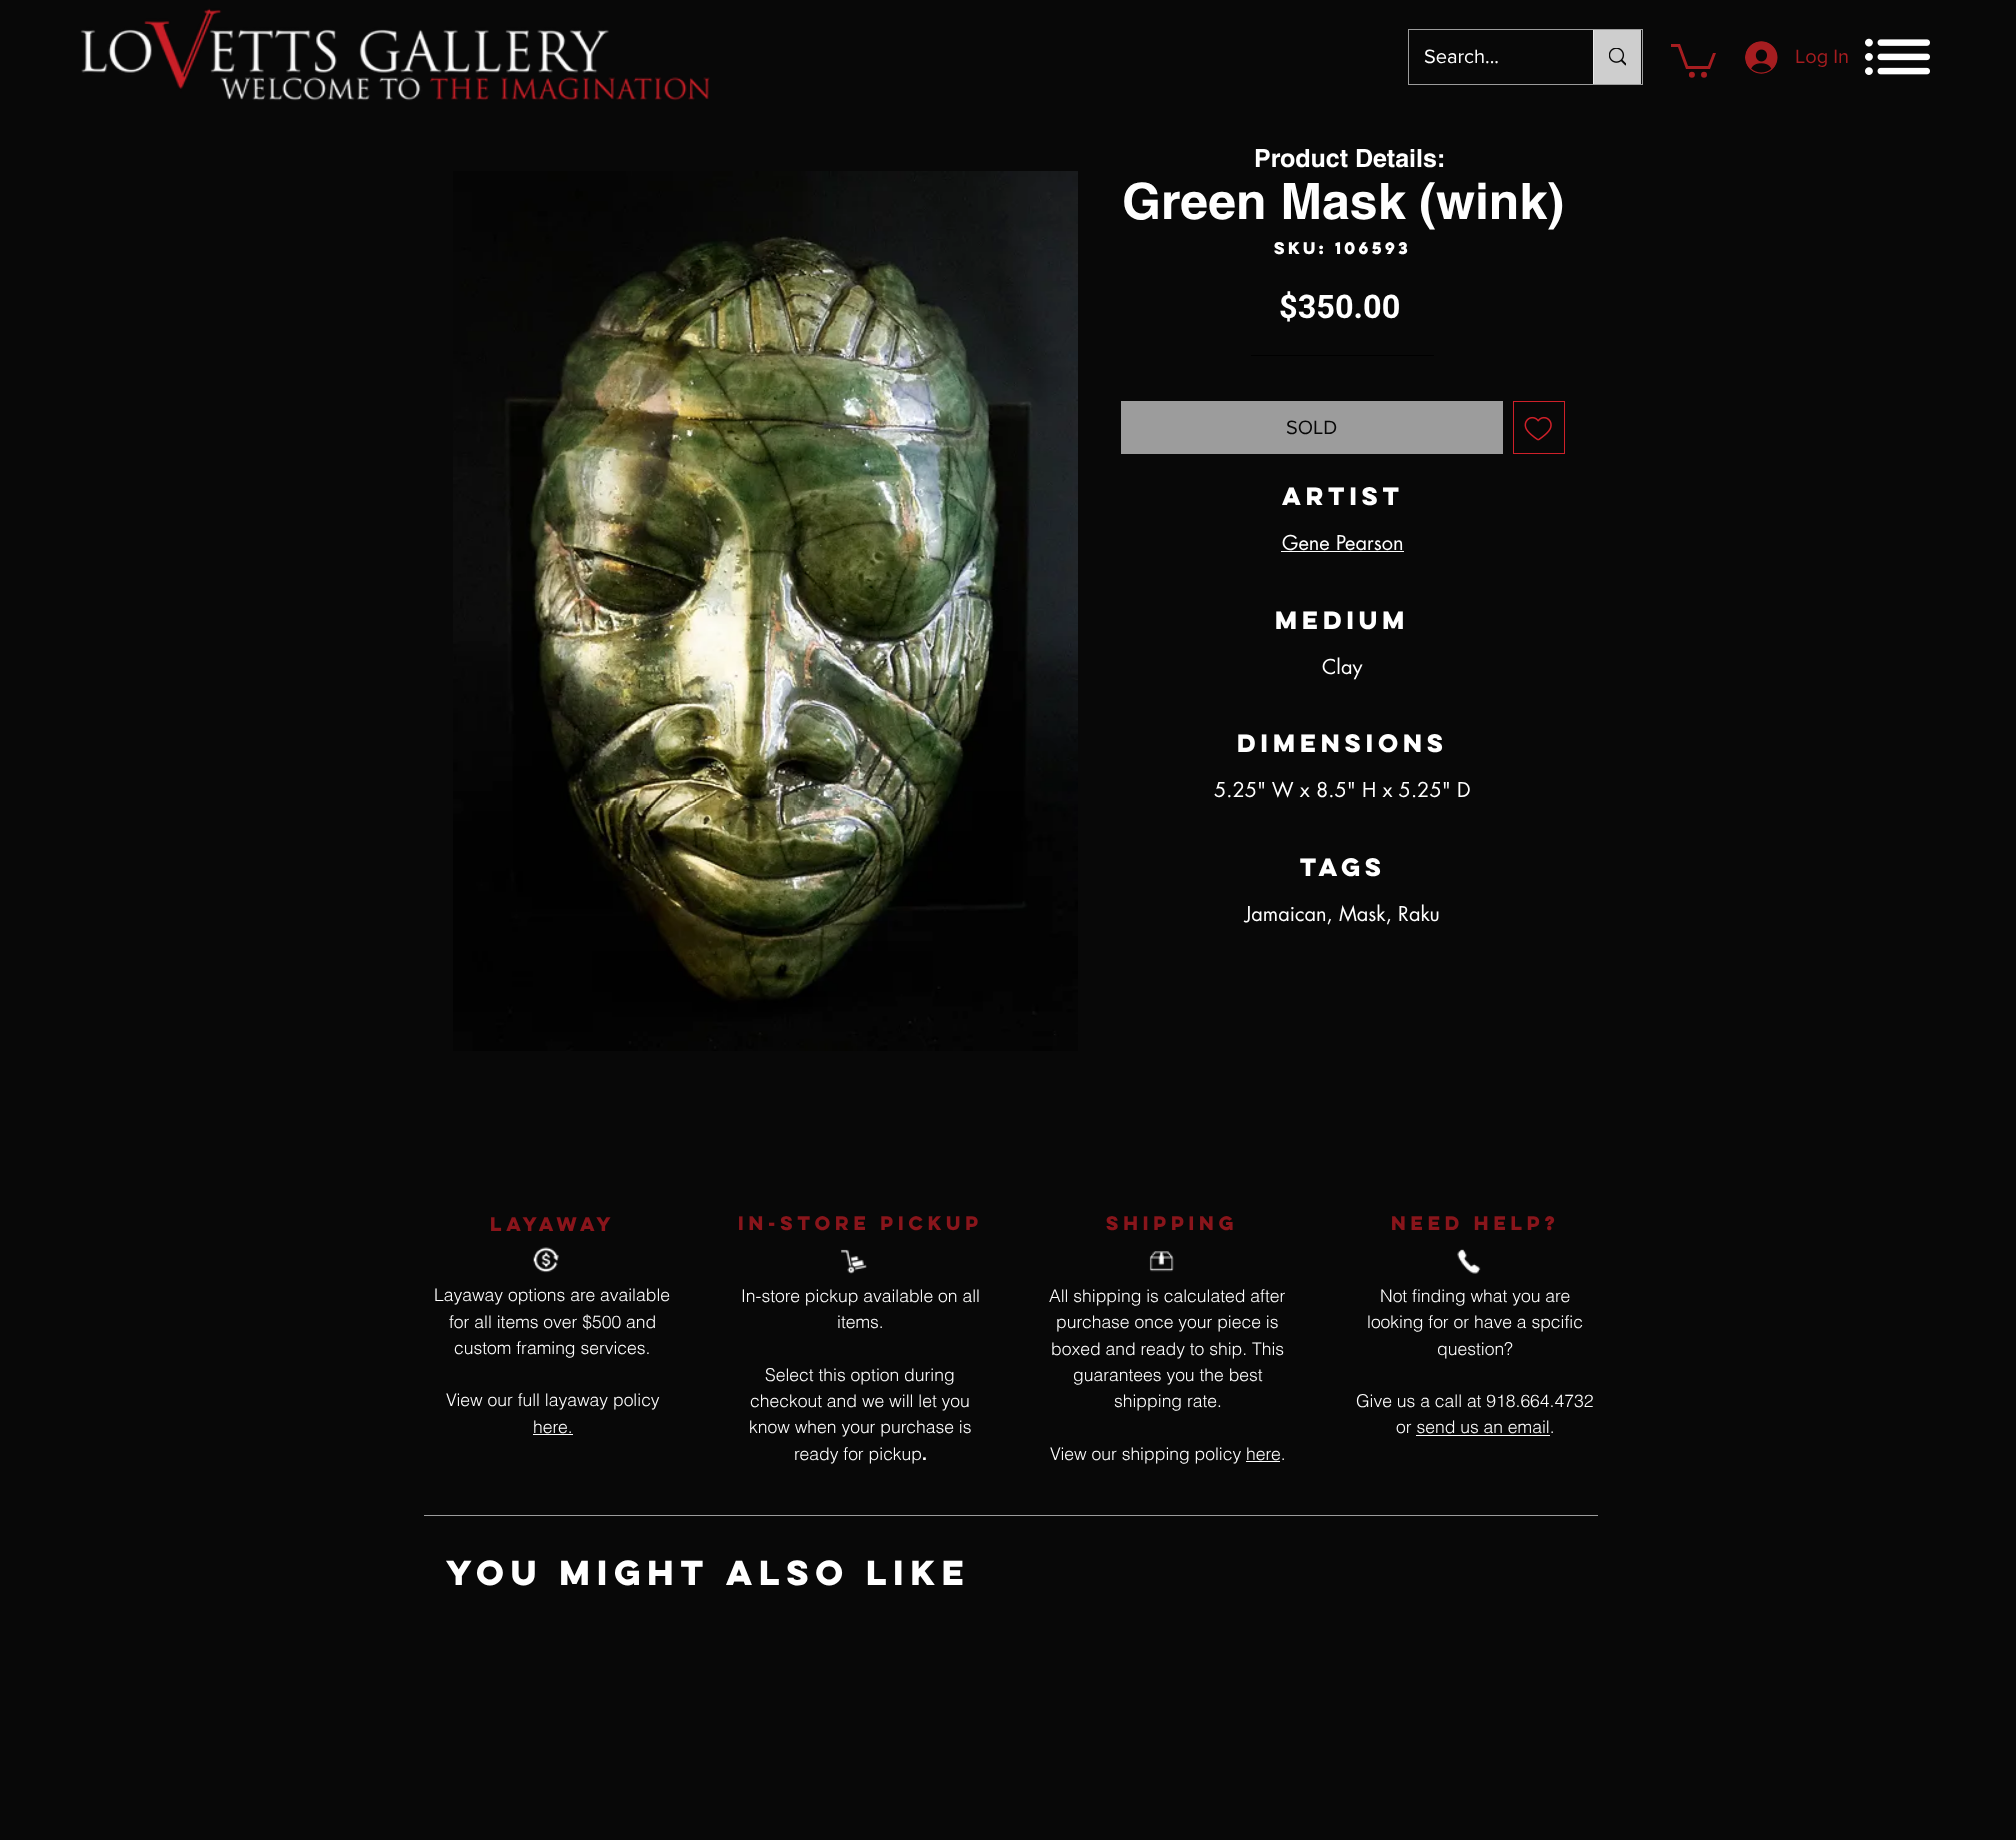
<!DOCTYPE html>
<meta charset="utf-8">
<style>body { margin: 0 } canvas { display: block }</style>
<canvas id="canvas" width="2016" height="1840"></canvas>
<script type="module">
  const canvas = document.getElementById("canvas");
  const ctx = canvas.getContext("2d");
  ctx.miterLimit = 4;
  ctx.fontKerning = "normal";
  async function loadImage(src) {
    const img = new Image();
    img.src = src;
    await img.decode();
    return img;
  }

  ctx.fillStyle = "#080808";
  ctx.fillRect(0, 0, 2016, 1840);
  ctx.drawImage(await loadImage("img1.png"), 80, 8, 630, 93);
  ctx.strokeStyle = "#9c9c9c";
  ctx.strokeRect(1408.5, 29.5, 234, 55);
  ctx.font = "20px 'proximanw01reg'";
  ctx.fillStyle = "#ffffff";
  ctx.fillText("Search...", 1424, 63);
  ctx.fillStyle = "#cecece";
  ctx.fillRect(1594, 30, 47, 54);
  ctx.fillStyle = "#ebebeb";
  ctx.fillRect(1593, 30, 1, 54);
  ctx.drawImage(await loadImage("img2.png"), 1609, 48, 17, 18);
  ctx.fillStyle = "#a61d20";
  ctx.beginPath();
  ctx.moveTo(1716, 53);
  ctx.lineTo(1710, 69);
  ctx.lineTo(1686, 69);
  ctx.lineTo(1678, 47);
  ctx.lineTo(1671, 47);
  ctx.lineTo(1671, 44);
  ctx.lineTo(1680, 44);
  ctx.lineTo(1688, 66);
  ctx.lineTo(1708, 66);
  ctx.lineTo(1713, 53);
  ctx.fill();
  ctx.beginPath();
  ctx.arc(1704, 74.8, 3, 0, Math.PI * 2);
  ctx.fill();
  ctx.beginPath();
  ctx.arc(1691.9, 74.8, 3, 0, Math.PI * 2);
  ctx.fill();
  ctx.drawImage(await loadImage("img3.png"), 1745, 41, 33, 33);
  ctx.fillText("Log In", 1795, 63);
  ctx.drawImage(await loadImage("img4.png"), 1865, 38, 65, 37);
  ctx.font = "bold 25px helvetica";
  ctx.fillStyle = "#ffffff";
  ctx.fillText("Product Details:", 1254, 167);
  ctx.drawImage(await loadImage("img5.png"), 453, 171, 625, 880);
  ctx.font = "bold 50px helvetica";
  ctx.fillText("Green Mask (wink)", 1122, 219);
  ctx.font = "bold 15px 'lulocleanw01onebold'";
  ctx.fillText("SKU: 106593", 1274, 254);
  ctx.font = "bold 32.5px Roboto";
  ctx.fillText("$350.00", 1279, 318);
  ctx.fillStyle = "#000000";
  ctx.fillRect(1251, 355, 183, 1);
  ctx.fillStyle = "#9c9c9c";
  ctx.fillRect(1121, 401, 382, 53);
  ctx.font = "20px 'proximanw01reg'";
  ctx.fillStyle = "#080808";
  ctx.fillText("SOLD", 1286, 434);
  ctx.strokeStyle = "#ce2029";
  ctx.strokeRect(1513.5, 401.5, 51, 52);
  ctx.drawImage(await loadImage("img6.png"), 1524, 416, 28, 25);
  ctx.font = "bold 22.5px 'lulocleanw01onebold'";
  ctx.fillStyle = "#ffffff";
  ctx.fillText("Artist", 1282, 505);
  ctx.font = "20px futura";
  ctx.fillText("Gene Pearson", 1282, 550);
  ctx.fillRect(1281, 551, 123, 1);
  ctx.font = "bold 22.5px 'lulocleanw01onebold'";
  ctx.fillText("Medium", 1275, 629);
  ctx.font = "20px futura";
  ctx.fillText("Clay", 1322, 674);
  ctx.font = "bold 22.5px 'lulocleanw01onebold'";
  ctx.fillText("Dimensions", 1237, 752);
  ctx.font = "20px futura";
  ctx.fillText("5.25\" W x 8.5\" H x 5.25\" D", 1214, 797);
  ctx.font = "bold 22.5px 'lulocleanw01onebold'";
  ctx.fillText("Tags", 1300, 876);
  ctx.font = "20px futura";
  ctx.fillText("Jamaican, Mask, Raku", 1245, 921);
  ctx.letterSpacing = "0.9px";
  ctx.font = "bold 17.5px 'lulocleanw01onebold'";
  ctx.fillStyle = "#89151b";
  ctx.fillText("LAYAWAY", 490, 1231);
  ctx.drawImage(await loadImage("img7.png"), 533, 1247, 26, 26);
  ctx.letterSpacing = "0px";
  ctx.font = "300 17.5px helvetica";
  ctx.fillStyle = "#ffffff";
  ctx.fillText("Layaway options are available", 434, 1301);
  ctx.fillText("for all items over $500 and", 449, 1328);
  ctx.fillText("custom framing services.", 454, 1354);
  ctx.fillText("View our full layaway policy", 446, 1406);
  ctx.fillText("here.", 533, 1433);
  ctx.fillRect(533, 1434, 40, 1);
  ctx.letterSpacing = "0.9px";
  ctx.font = "bold 17.5px 'lulocleanw01onebold'";
  ctx.fillStyle = "#89151b";
  ctx.fillText("IN-STORE Pickup", 738, 1230);
  ctx.drawImage(await loadImage("img8.png"), 841, 1249, 26, 25);
  ctx.letterSpacing = "0px";
  ctx.font = "300 17.5px helvetica";
  ctx.fillStyle = "#ffffff";
  ctx.fillText("In-store pickup available on all", 741, 1302);
  ctx.fillText("items.", 837, 1328);
  ctx.fillText("Select this option during", 765, 1381);
  ctx.fillText("checkout and we will let you", 750, 1407);
  ctx.fillText("know when your purchase is", 749, 1433);
  ctx.fillText("ready for pickup", 794, 1460);
  ctx.font = "bold 17.5px helvetica";
  ctx.fillText(".", 922, 1460);
  ctx.letterSpacing = "0.9px";
  ctx.font = "bold 17.5px 'lulocleanw01onebold'";
  ctx.fillStyle = "#89151b";
  ctx.fillText("SHIPPING", 1106, 1230);
  ctx.drawImage(await loadImage("img9.png"), 1149, 1251, 25, 21);
  ctx.letterSpacing = "0px";
  ctx.font = "300 17.5px helvetica";
  ctx.fillStyle = "#ffffff";
  ctx.fillText("All shipping is calculated after", 1049, 1302);
  ctx.fillText("purchase once your piece is", 1056, 1328);
  ctx.fillText("boxed and ready to ship. This", 1051, 1355);
  ctx.fillText("guarantees you the best", 1073, 1381);
  ctx.fillText("shipping rate.", 1114, 1407);
  ctx.fillText("View our shipping policy here.", 1050, 1460);
  ctx.fillRect(1246, 1461, 34, 1);
  ctx.letterSpacing = "0.9px";
  ctx.font = "bold 17.5px 'lulocleanw01onebold'";
  ctx.fillStyle = "#89151b";
  ctx.fillText("NEED HELP?", 1391, 1230);
  ctx.drawImage(await loadImage("img10.png"), 1457, 1249, 24, 25);
  ctx.letterSpacing = "0px";
  ctx.font = "300 17.5px helvetica";
  ctx.fillStyle = "#ffffff";
  ctx.fillText("Not finding what you are", 1380, 1302);
  ctx.fillText("looking for or have a spcific", 1367, 1328);
  ctx.fillText("question?", 1437, 1355);
  ctx.fillText("Give us a call at 918.664.4732", 1356, 1407);
  ctx.fillText("or send us an email.", 1396, 1433);
  ctx.fillRect(1416, 1435, 134, 1);
  ctx.fillStyle = "#9c9c9c";
  ctx.fillRect(424, 1515, 1174, 1);
  ctx.font = "bold 31.25px 'lulocleanw01onebold'";
  ctx.fillStyle = "#ffffff";
  ctx.fillText("You Might Also Like", 446, 1585);
</script>
